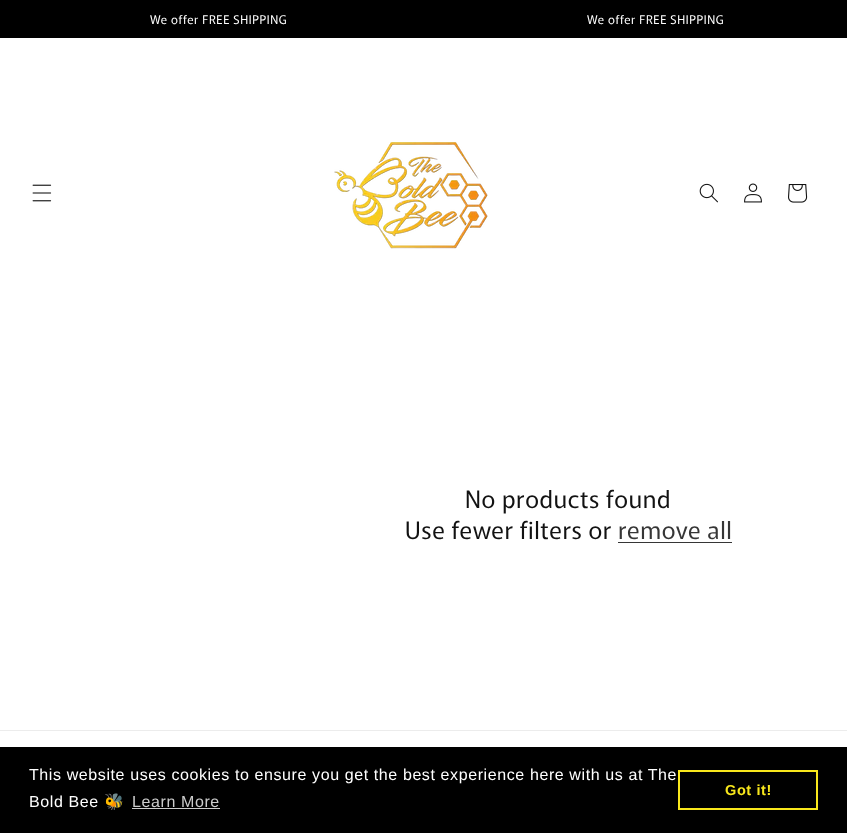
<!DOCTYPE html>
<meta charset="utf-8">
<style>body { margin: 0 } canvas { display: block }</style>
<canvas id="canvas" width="847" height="833"></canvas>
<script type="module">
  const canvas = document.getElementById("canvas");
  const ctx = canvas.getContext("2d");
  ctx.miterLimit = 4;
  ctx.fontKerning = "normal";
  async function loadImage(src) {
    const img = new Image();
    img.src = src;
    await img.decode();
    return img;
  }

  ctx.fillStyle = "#ffffff";
  ctx.fillRect(0, 0, 847, 833);
  ctx.fillStyle = "#000000";
  ctx.fillRect(0, 0, 847, 38);
  ctx.letterSpacing = "0.6px";
  ctx.font = "12px Murecho";
  ctx.fillStyle = "#ffffff";
  ctx.fillText("We offer FREE SHIPPING", 150, 24);
  ctx.fillText("We offer FREE SHIPPING", 587, 24);
  ctx.drawImage(await loadImage("img1.png"), 32, 184, 20, 18);
  ctx.drawImage(await loadImage("img2.png"), 334, 142, 154, 107);
  ctx.drawImage(await loadImage("img3.png"), 699, 183, 19, 20);
  ctx.drawImage(await loadImage("img4.png"), 744, 183, 18, 20);
  ctx.drawImage(await loadImage("img5.png"), 788, 184, 20, 19);
  ctx.font = "24px Murecho";
  ctx.fillStyle = "#121212";
  ctx.fillText("No products found", 465, 508);
  ctx.fillText("Use fewer filters or", 405, 539);
  ctx.fillStyle = "#363636";
  ctx.fillText("remove all", 618, 539);
  ctx.fillRect(618, 542, 114, 1);
  ctx.fillStyle = "#ececec";
  ctx.fillRect(0, 730, 847, 1);
  ctx.fillStyle = "#000000";
  ctx.fillRect(0, 747, 847, 86);
  ctx.font = "16px Liberation Sans";
  ctx.fillStyle = "#ffffff";
  ctx.fillText("This website uses cookies to ensure you get the best experience here with us at The", 29, 780);
  ctx.fillText("Bold Bee", 29, 807);
  ctx.font = "16px Noto Color Emoji";
  ctx.fillText("🐝", 104, 807);
  ctx.font = "16px Liberation Sans";
  ctx.fillStyle = "#cccccc";
  ctx.fillText("Learn More", 132, 807);
  ctx.fillRect(132, 808, 88, 1);
  ctx.strokeStyle = "#f8e71c";
  ctx.lineWidth = 2;
  ctx.strokeRect(679, 771, 138, 38);
  ctx.font = "bold 14.5px Liberation Sans";
  ctx.fillStyle = "#f8e71c";
  ctx.fillText("Got it!", 725, 795);
</script>
